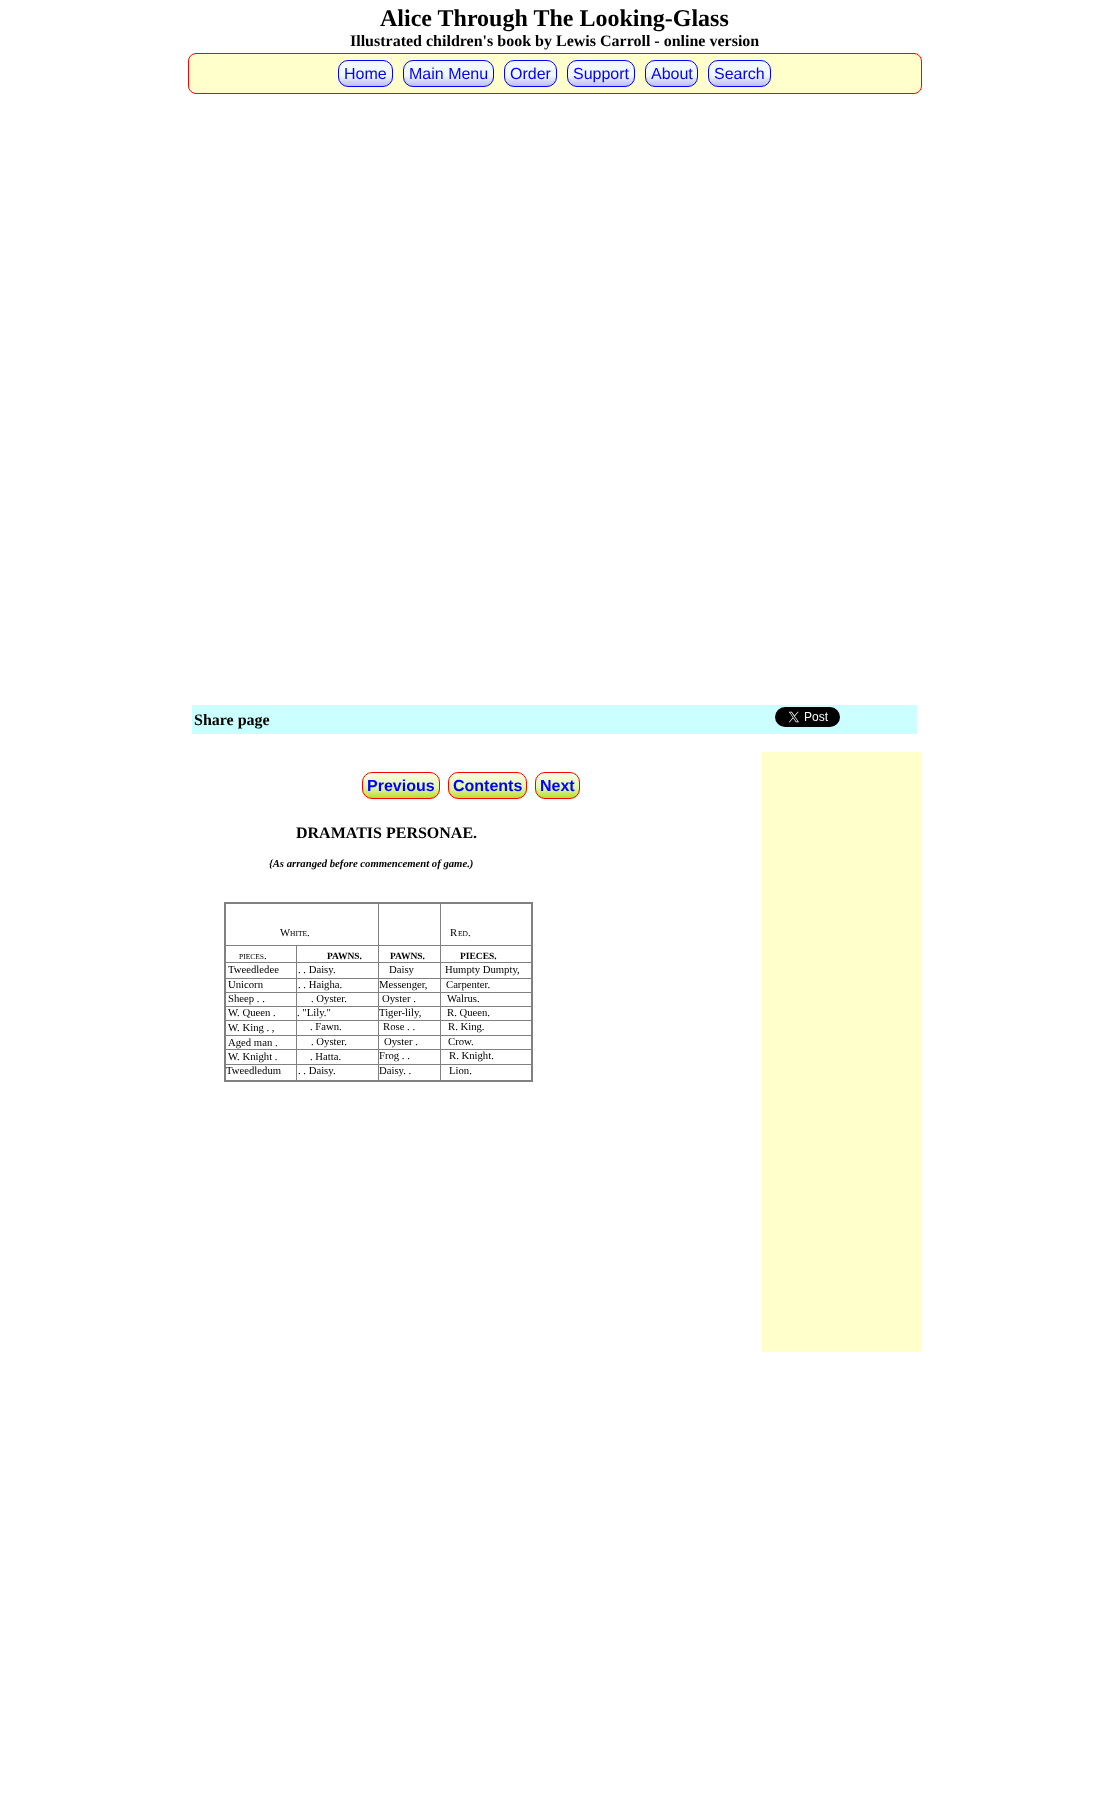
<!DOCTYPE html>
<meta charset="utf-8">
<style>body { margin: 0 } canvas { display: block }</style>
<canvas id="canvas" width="1109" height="1799"></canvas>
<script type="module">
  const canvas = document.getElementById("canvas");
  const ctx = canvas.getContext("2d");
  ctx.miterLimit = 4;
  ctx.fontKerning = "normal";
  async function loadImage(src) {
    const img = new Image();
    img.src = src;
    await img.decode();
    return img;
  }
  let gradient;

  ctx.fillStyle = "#ffffff";
  ctx.fillRect(0, 0, 1109, 1799);
  ctx.font = "bold 24px Liberation Serif";
  ctx.fillStyle = "#000000";
  ctx.fillText("Alice Through The Looking-Glass", 380, 26);
  ctx.font = "bold 16px Liberation Serif";
  ctx.fillText("Illustrated children's book by Lewis Carroll - online version", 350, 46);
  ctx.fillStyle = "#ffffcc";
  ctx.beginPath();
  ctx.roundRect(188.5, 53.5, 733, 40, 7.5);
  ctx.fill();
  ctx.strokeStyle = "#ff0000";
  ctx.stroke();
  ctx.save();
  ctx.beginPath();
  ctx.roundRect(338, 60, 55, 27, 10);
  ctx.clip();
  gradient = ctx.createLinearGradient(366, 61, 366, 86);
  gradient.addColorStop(0.57, "#f1f8ff");
  gradient.addColorStop(1, "#bbbdf9");
  ctx.fillStyle = gradient;
  ctx.fillRect(338, 61, 55, 25);
  ctx.restore();
  ctx.beginPath();
  ctx.roundRect(338.5, 60.5, 54, 26, 9.5);
  ctx.strokeStyle = "#0000ff";
  ctx.stroke();
  ctx.font = "16px Liberation Sans";
  ctx.fillStyle = "#0000ff";
  ctx.fillText("Home", 344, 79);
  ctx.save();
  ctx.beginPath();
  ctx.roundRect(403, 60, 91, 27, 10);
  ctx.clip();
  gradient = ctx.createLinearGradient(449, 61, 449, 86);
  gradient.addColorStop(0.57, "#f1f8ff");
  gradient.addColorStop(1, "#bbbdf9");
  ctx.fillStyle = gradient;
  ctx.fillRect(403, 61, 91, 25);
  ctx.restore();
  ctx.beginPath();
  ctx.roundRect(403.5, 60.5, 90, 26, 9.5);
  ctx.stroke();
  ctx.fillText("Main Menu", 409, 79);
  ctx.save();
  ctx.beginPath();
  ctx.roundRect(504, 60, 53, 27, 10);
  ctx.clip();
  gradient = ctx.createLinearGradient(531, 61, 531, 86);
  gradient.addColorStop(0.57, "#f1f8ff");
  gradient.addColorStop(1, "#bbbdf9");
  ctx.fillStyle = gradient;
  ctx.fillRect(504, 61, 53, 25);
  ctx.restore();
  ctx.beginPath();
  ctx.roundRect(504.5, 60.5, 52, 26, 9.5);
  ctx.stroke();
  ctx.fillText("Order", 510, 79);
  ctx.save();
  ctx.beginPath();
  ctx.roundRect(567, 60, 68, 27, 10);
  ctx.clip();
  gradient = ctx.createLinearGradient(601, 61, 601, 86);
  gradient.addColorStop(0.57, "#f1f8ff");
  gradient.addColorStop(1, "#bbbdf9");
  ctx.fillStyle = gradient;
  ctx.fillRect(567, 61, 68, 25);
  ctx.restore();
  ctx.beginPath();
  ctx.roundRect(567.5, 60.5, 67, 26, 9.5);
  ctx.stroke();
  ctx.fillText("Support", 573, 79);
  ctx.save();
  ctx.beginPath();
  ctx.roundRect(645, 60, 53, 27, 10);
  ctx.clip();
  gradient = ctx.createLinearGradient(672, 61, 672, 86);
  gradient.addColorStop(0.57, "#f1f8ff");
  gradient.addColorStop(1, "#bbbdf9");
  ctx.fillStyle = gradient;
  ctx.fillRect(645, 61, 53, 25);
  ctx.restore();
  ctx.beginPath();
  ctx.roundRect(645.5, 60.5, 52, 26, 9.5);
  ctx.stroke();
  ctx.fillText("About", 651, 79);
  ctx.save();
  ctx.beginPath();
  ctx.roundRect(708, 60, 63, 27, 10);
  ctx.clip();
  gradient = ctx.createLinearGradient(740, 61, 740, 86);
  gradient.addColorStop(0.57, "#f1f8ff");
  gradient.addColorStop(1, "#bbbdf9");
  ctx.fillStyle = gradient;
  ctx.fillRect(708, 61, 63, 25);
  ctx.restore();
  ctx.beginPath();
  ctx.roundRect(708.5, 60.5, 62, 26, 9.5);
  ctx.stroke();
  ctx.fillText("Search", 714, 79);
  ctx.fillStyle = "#ccffff";
  ctx.fillRect(192, 705, 725, 29);
  ctx.font = "bold 16px Liberation Serif";
  ctx.fillStyle = "#000000";
  ctx.fillText("Share page", 194, 725);
  ctx.drawImage(await loadImage("img1.png"), 775, 707, 65, 20);
  ctx.save();
  ctx.beginPath();
  ctx.roundRect(362, 772, 78, 27, 10);
  ctx.clip();
  gradient = ctx.createLinearGradient(401, 773, 401, 798);
  gradient.addColorStop(0, "#f8ffe8");
  gradient.addColorStop(0.58, "#e3f5ab");
  gradient.addColorStop(1, "#b7df2d");
  ctx.fillStyle = gradient;
  ctx.fillRect(362, 773, 78, 25);
  ctx.restore();
  ctx.beginPath();
  ctx.roundRect(362.5, 772.5, 77, 26, 9.5);
  ctx.strokeStyle = "#ff0000";
  ctx.stroke();
  ctx.font = "bold 16px Liberation Sans";
  ctx.fillStyle = "#0000ff";
  ctx.fillText("Previous", 367, 791);
  ctx.save();
  ctx.beginPath();
  ctx.roundRect(448, 772, 79, 27, 10);
  ctx.clip();
  gradient = ctx.createLinearGradient(488, 773, 488, 798);
  gradient.addColorStop(0, "#f8ffe8");
  gradient.addColorStop(0.58, "#e3f5ab");
  gradient.addColorStop(1, "#b7df2d");
  ctx.fillStyle = gradient;
  ctx.fillRect(448, 773, 79, 25);
  ctx.restore();
  ctx.beginPath();
  ctx.roundRect(448.5, 772.5, 78, 26, 9.5);
  ctx.stroke();
  ctx.fillText("Contents", 453, 791);
  ctx.save();
  ctx.beginPath();
  ctx.roundRect(535, 772, 45, 27, 10);
  ctx.clip();
  gradient = ctx.createLinearGradient(558, 773, 558, 798);
  gradient.addColorStop(0, "#f8ffe8");
  gradient.addColorStop(0.58, "#e3f5ab");
  gradient.addColorStop(1, "#b7df2d");
  ctx.fillStyle = gradient;
  ctx.fillRect(535, 773, 45, 25);
  ctx.restore();
  ctx.beginPath();
  ctx.roundRect(535.5, 772.5, 44, 26, 9.5);
  ctx.stroke();
  ctx.fillText("Next", 540, 791);
  ctx.fillStyle = "#ffffcc";
  ctx.fillRect(762, 752, 160, 600);
  ctx.font = "bold 16px Liberation Serif";
  ctx.fillStyle = "#000000";
  ctx.fillText("DRAMATIS PERSONAE.", 296, 838);
  ctx.font = "italic bold 10.7px Liberation Serif";
  ctx.fillText("{As arranged before commencement of game.)", 269, 867);
  ctx.fillStyle = "#808080";
  ctx.fillRect(531, 1081, 2, 1);
  ctx.fillRect(440, 1080, 92, 2);
  ctx.fillRect(531, 1064, 2, 17);
  ctx.fillRect(440, 1064, 92, 1);
  ctx.fillRect(531, 1049, 2, 16);
  ctx.fillRect(440, 1049, 92, 1);
  ctx.fillRect(531, 1035, 2, 15);
  ctx.fillRect(440, 1035, 92, 1);
  ctx.fillRect(531, 1020, 2, 16);
  ctx.fillRect(440, 1020, 92, 1);
  ctx.fillRect(531, 1006, 2, 15);
  ctx.fillRect(440, 1006, 92, 1);
  ctx.fillRect(531, 992, 2, 15);
  ctx.fillRect(440, 992, 92, 1);
  ctx.fillRect(531, 978, 2, 15);
  ctx.fillRect(440, 978, 92, 1);
  ctx.fillRect(531, 962, 2, 17);
  ctx.fillRect(440, 962, 92, 1);
  ctx.fillRect(531, 945, 2, 18);
  ctx.fillRect(440, 945, 92, 1);
  ctx.fillRect(531, 902, 2, 44);
  ctx.fillRect(440, 902, 92, 2);
  ctx.fillRect(378, 1080, 63, 2);
  ctx.fillRect(440, 1064, 1, 17);
  ctx.fillRect(378, 1064, 63, 1);
  ctx.fillRect(440, 1049, 1, 16);
  ctx.fillRect(378, 1049, 63, 1);
  ctx.fillRect(440, 1035, 1, 15);
  ctx.fillRect(378, 1035, 63, 1);
  ctx.fillRect(440, 1020, 1, 16);
  ctx.fillRect(378, 1020, 63, 1);
  ctx.fillRect(440, 1006, 1, 15);
  ctx.fillRect(378, 1006, 63, 1);
  ctx.fillRect(440, 992, 1, 15);
  ctx.fillRect(378, 992, 63, 1);
  ctx.fillRect(440, 978, 1, 15);
  ctx.fillRect(378, 978, 63, 1);
  ctx.fillRect(440, 962, 1, 17);
  ctx.fillRect(378, 962, 63, 1);
  ctx.fillRect(440, 945, 1, 18);
  ctx.fillRect(378, 945, 63, 1);
  ctx.fillRect(440, 903, 1, 43);
  ctx.fillRect(378, 902, 63, 2);
  ctx.fillRect(224, 902, 155, 1);
  ctx.fillRect(296, 1080, 83, 2);
  ctx.fillRect(378, 1064, 1, 17);
  ctx.fillRect(296, 1064, 83, 1);
  ctx.fillRect(378, 1049, 1, 16);
  ctx.fillRect(296, 1049, 83, 1);
  ctx.fillRect(378, 1035, 1, 15);
  ctx.fillRect(296, 1035, 83, 1);
  ctx.fillRect(378, 1020, 1, 16);
  ctx.fillRect(296, 1020, 83, 1);
  ctx.fillRect(378, 1006, 1, 15);
  ctx.fillRect(296, 1006, 83, 1);
  ctx.fillRect(378, 992, 1, 15);
  ctx.fillRect(296, 992, 83, 1);
  ctx.fillRect(378, 978, 1, 15);
  ctx.fillRect(296, 978, 83, 1);
  ctx.fillRect(378, 962, 1, 17);
  ctx.fillRect(296, 962, 83, 1);
  ctx.fillRect(378, 945, 1, 18);
  ctx.fillRect(296, 945, 83, 1);
  ctx.fillRect(378, 903, 1, 43);
  ctx.fillRect(225, 903, 154, 1);
  ctx.fillRect(225, 1080, 72, 2);
  ctx.fillRect(296, 1064, 1, 17);
  ctx.fillRect(225, 1064, 72, 1);
  ctx.fillRect(296, 1049, 1, 16);
  ctx.fillRect(225, 1049, 72, 1);
  ctx.fillRect(296, 1035, 1, 15);
  ctx.fillRect(225, 1035, 72, 1);
  ctx.fillRect(296, 1020, 1, 16);
  ctx.fillRect(225, 1020, 72, 1);
  ctx.fillRect(296, 1006, 1, 15);
  ctx.fillRect(225, 1006, 72, 1);
  ctx.fillRect(296, 992, 1, 15);
  ctx.fillRect(225, 992, 72, 1);
  ctx.fillRect(296, 978, 1, 15);
  ctx.fillRect(225, 978, 72, 1);
  ctx.fillRect(296, 962, 1, 17);
  ctx.fillRect(225, 962, 72, 1);
  ctx.fillRect(296, 945, 1, 18);
  ctx.fillRect(225, 945, 72, 1);
  ctx.fillRect(224, 1064, 2, 17);
  ctx.fillRect(224, 1049, 2, 16);
  ctx.fillRect(224, 1035, 2, 15);
  ctx.fillRect(224, 1020, 2, 16);
  ctx.fillRect(224, 1006, 2, 15);
  ctx.fillRect(224, 992, 2, 15);
  ctx.fillRect(224, 978, 2, 15);
  ctx.fillRect(224, 962, 2, 17);
  ctx.fillRect(224, 945, 2, 18);
  ctx.fillRect(225, 903, 1, 43);
  ctx.fillRect(224, 903, 2, 1);
  ctx.fillRect(224, 903, 1, 43);
  ctx.font = "10.7px Liberation Serif";
  ctx.fillStyle = "#000000";
  ctx.fillText("W", 280, 936);
  ctx.font = "7.5px Liberation Serif";
  ctx.fillText("HITE", 290, 936);
  ctx.font = "10.7px Liberation Serif";
  ctx.fillText(".", 307, 936);
  ctx.fillText("R", 450, 936);
  ctx.font = "7.5px Liberation Serif";
  ctx.fillText("ED", 458, 936);
  ctx.font = "10.7px Liberation Serif";
  ctx.fillText(".", 468, 936);
  ctx.font = "7.5px Liberation Serif";
  ctx.fillText("PIECES", 239, 959);
  ctx.font = "10.7px Liberation Serif";
  ctx.fillText(".", 264, 959);
  ctx.font = "bold 9.5px Liberation Serif";
  ctx.fillText("PAWNS.", 327, 959);
  ctx.fillText("PAWNS.", 390, 959);
  ctx.fillText("PIECES.", 460, 959);
  ctx.font = "10.7px Liberation Serif";
  ctx.fillText("Tweedledee", 228, 973);
  ctx.fillText(". . Daisy.", 298, 973);
  ctx.fillText("Daisy", 389, 973);
  ctx.fillText("Humpty Dumpty,", 445, 973);
  ctx.fillText("Unicorn", 228, 988);
  ctx.fillText(". . Haigha.", 298, 988);
  ctx.fillText("Messenger,", 379, 988);
  ctx.fillText("Carpenter.", 446, 988);
  ctx.fillText("Sheep . .", 228, 1002);
  ctx.fillText(". Oyster.", 311, 1002);
  ctx.fillText("Oyster .", 382, 1002);
  ctx.fillText("Walrus.", 447, 1002);
  ctx.fillText("W. Queen .", 228, 1016);
  ctx.fillText(". \"Lily.\"", 297, 1016);
  ctx.fillText("Tiger-lily,", 379, 1016);
  ctx.fillText("R. Queen.", 447, 1016);
  ctx.fillText("W. King . ,", 228, 1031);
  ctx.fillText(". Fawn.", 310, 1030);
  ctx.fillText("Rose . .", 383, 1030);
  ctx.fillText("R. King.", 448, 1030);
  ctx.fillText("Aged man .", 228, 1046);
  ctx.fillText(". Oyster.", 311, 1045);
  ctx.fillText("Oyster .", 384, 1045);
  ctx.fillText("Crow.", 448, 1045);
  ctx.fillText("W. Knight .", 228, 1060);
  ctx.fillText(". Hatta.", 310, 1060);
  ctx.fillText("Frog . .", 379, 1059);
  ctx.fillText("R. Knight.", 449, 1059);
  ctx.fillText("Tweedledum", 226, 1074);
  ctx.fillText(". . Daisy.", 298, 1074);
  ctx.fillText("Daisy. .", 379, 1074);
  ctx.fillText("Lion.", 449, 1074);
  ctx.fillStyle = "#808080";
  ctx.fillRect(224, 1081, 2, 1);
</script>
